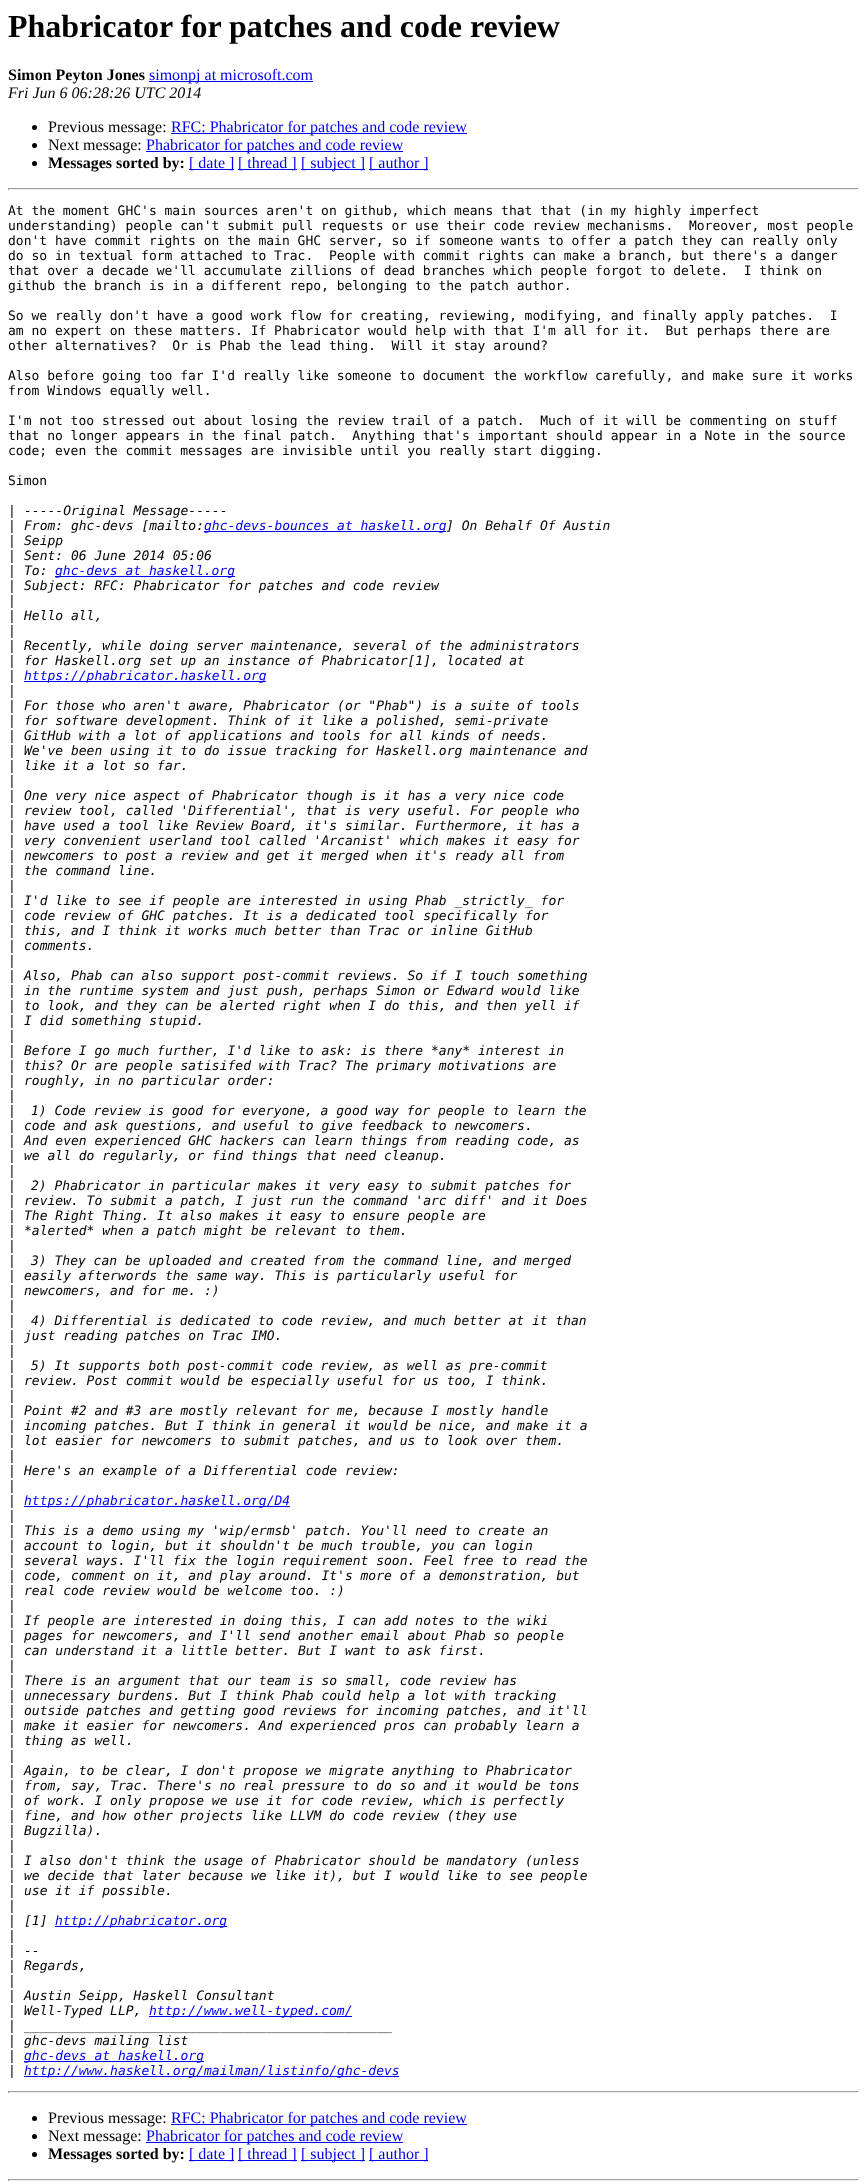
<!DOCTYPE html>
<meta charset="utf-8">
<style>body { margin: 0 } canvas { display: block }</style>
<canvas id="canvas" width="867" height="2184"></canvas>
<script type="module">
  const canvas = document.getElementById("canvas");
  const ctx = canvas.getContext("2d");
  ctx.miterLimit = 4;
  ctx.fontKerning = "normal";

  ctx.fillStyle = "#ffffff";
  ctx.fillRect(0, 0, 867, 2184);
  ctx.font = "bold 32px Liberation Serif";
  ctx.fillStyle = "#000000";
  ctx.fillText("Phabricator for patches and code review", 8, 37);
  ctx.font = "bold 16px Liberation Serif";
  ctx.fillText("Simon Peyton Jones", 8, 80);
  ctx.fillStyle = "#0000ee";
  ctx.fillRect(149, 81, 164, 1);
  ctx.font = "16px Liberation Serif";
  ctx.fillText("simonpj at microsoft.com", 149, 80);
  ctx.font = "italic 16px Liberation Serif";
  ctx.fillStyle = "#000000";
  ctx.fillText("Fri Jun 6 06:28:26 UTC 2014", 8, 98);
  ctx.beginPath();
  ctx.arc(34.5, 127.5, 2.5, 0, Math.PI * 2);
  ctx.fill();
  ctx.font = "16px Liberation Serif";
  ctx.fillText("Previous message:", 48, 132);
  ctx.fillStyle = "#0000ee";
  ctx.fillRect(171, 133, 296, 1);
  ctx.fillText("RFC: Phabricator for patches and code review", 171, 132);
  ctx.fillStyle = "#000000";
  ctx.beginPath();
  ctx.arc(34.5, 145.5, 2.5, 0, Math.PI * 2);
  ctx.fill();
  ctx.fillText("Next message:", 48, 150);
  ctx.fillStyle = "#0000ee";
  ctx.fillRect(146, 151, 257, 1);
  ctx.fillText("Phabricator for patches and code review", 146, 150);
  ctx.fillStyle = "#000000";
  ctx.beginPath();
  ctx.arc(34.5, 163.5, 2.5, 0, Math.PI * 2);
  ctx.fill();
  ctx.font = "bold 16px Liberation Serif";
  ctx.fillText("Messages sorted by:", 48, 168);
  ctx.fillStyle = "#0000ee";
  ctx.fillRect(189, 169, 45, 1);
  ctx.font = "16px Liberation Serif";
  ctx.fillText("[ date ]", 189, 168);
  ctx.fillRect(238, 169, 59, 1);
  ctx.fillText("[ thread ]", 238, 168);
  ctx.fillRect(301, 169, 64, 1);
  ctx.fillText("[ subject ]", 301, 168);
  ctx.fillRect(369, 169, 59, 1);
  ctx.fillText("[ author ]", 369, 168);
  ctx.fillStyle = "#9f9f9f";
  ctx.fillRect(8, 188, 851, 1);
  ctx.fillStyle = "#eeeeee";
  ctx.fillRect(858, 188, 1, 2);
  ctx.fillRect(8, 189, 851, 1);
  ctx.fillStyle = "#9f9f9f";
  ctx.fillRect(8, 188, 1, 2);
  ctx.font = "13px DejaVu Sans Mono";
  ctx.fillStyle = "#000000";
  ctx.fillText("At the moment GHC's main sources aren't on github, which means that that (in my highly imperfect", 8, 215);
  ctx.fillText("understanding) people can't submit pull requests or use their code review mechanisms.  Moreover, most people", 8, 230);
  ctx.fillText("don't have commit rights on the main GHC server, so if someone wants to offer a patch they can really only", 8, 245);
  ctx.fillText("do so in textual form attached to Trac.  People with commit rights can make a branch, but there's a danger", 8, 260);
  ctx.fillText("that over a decade we'll accumulate zillions of dead branches which people forgot to delete.  I think on", 8, 275);
  ctx.fillText("github the branch is in a different repo, belonging to the patch author.", 8, 290);
  ctx.fillText("So we really don't have a good work flow for creating, reviewing, modifying, and finally apply patches.  I", 8, 320);
  ctx.fillText("am no expert on these matters. If Phabricator would help with that I'm all for it.  But perhaps there are", 8, 335);
  ctx.fillText("other alternatives?  Or is Phab the lead thing.  Will it stay around?", 8, 350);
  ctx.fillText("Also before going too far I'd really like someone to document the workflow carefully, and make sure it works", 8, 380);
  ctx.fillText("from Windows equally well.", 8, 395);
  ctx.fillText("I'm not too stressed out about losing the review trail of a patch.  Much of it will be commenting on stuff", 8, 425);
  ctx.fillText("that no longer appears in the final patch.  Anything that's important should appear in a Note in the source", 8, 440);
  ctx.fillText("code; even the commit messages are invisible until you really start digging.", 8, 455);
  ctx.fillText("Simon", 8, 485);
  ctx.fillText("|", 8, 515);
  ctx.font = "italic 13px DejaVu Sans Mono";
  ctx.fillText("-----Original Message-----", 24, 515);
  ctx.font = "13px DejaVu Sans Mono";
  ctx.fillText("|", 8, 530);
  ctx.font = "italic 13px DejaVu Sans Mono";
  ctx.fillText("From: ghc-devs [mailto:", 24, 530);
  ctx.fillStyle = "#0000ee";
  ctx.fillRect(204, 531, 242, 1);
  ctx.fillText("ghc-devs-bounces at haskell.org", 204, 530);
  ctx.fillStyle = "#000000";
  ctx.fillText("] On Behalf Of Austin", 446, 530);
  ctx.font = "13px DejaVu Sans Mono";
  ctx.fillText("|", 8, 545);
  ctx.font = "italic 13px DejaVu Sans Mono";
  ctx.fillText("Seipp", 24, 545);
  ctx.font = "13px DejaVu Sans Mono";
  ctx.fillText("|", 8, 560);
  ctx.font = "italic 13px DejaVu Sans Mono";
  ctx.fillText("Sent: 06 June 2014 05:06", 24, 560);
  ctx.font = "13px DejaVu Sans Mono";
  ctx.fillText("|", 8, 575);
  ctx.font = "italic 13px DejaVu Sans Mono";
  ctx.fillText("To:", 24, 575);
  ctx.fillStyle = "#0000ee";
  ctx.fillRect(55, 576, 180, 1);
  ctx.fillText("ghc-devs at haskell.org", 55, 575);
  ctx.font = "13px DejaVu Sans Mono";
  ctx.fillStyle = "#000000";
  ctx.fillText("|", 8, 590);
  ctx.font = "italic 13px DejaVu Sans Mono";
  ctx.fillText("Subject: RFC: Phabricator for patches and code review", 24, 590);
  ctx.font = "13px DejaVu Sans Mono";
  ctx.fillText("|", 8, 605);
  ctx.fillText("|", 8, 620);
  ctx.font = "italic 13px DejaVu Sans Mono";
  ctx.fillText("Hello all,", 24, 620);
  ctx.font = "13px DejaVu Sans Mono";
  ctx.fillText("|", 8, 635);
  ctx.fillText("|", 8, 650);
  ctx.font = "italic 13px DejaVu Sans Mono";
  ctx.fillText("Recently, while doing server maintenance, several of the administrators", 24, 650);
  ctx.font = "13px DejaVu Sans Mono";
  ctx.fillText("|", 8, 665);
  ctx.font = "italic 13px DejaVu Sans Mono";
  ctx.fillText("for Haskell.org set up an instance of Phabricator[1], located at", 24, 665);
  ctx.font = "13px DejaVu Sans Mono";
  ctx.fillText("|", 8, 680);
  ctx.fillStyle = "#0000ee";
  ctx.fillRect(24, 681, 242, 1);
  ctx.font = "italic 13px DejaVu Sans Mono";
  ctx.fillText("https://phabricator.haskell.org", 24, 680);
  ctx.font = "13px DejaVu Sans Mono";
  ctx.fillStyle = "#000000";
  ctx.fillText("|", 8, 695);
  ctx.fillText("|", 8, 710);
  ctx.font = "italic 13px DejaVu Sans Mono";
  ctx.fillText("For those who aren't aware, Phabricator (or \"Phab\") is a suite of tools", 24, 710);
  ctx.font = "13px DejaVu Sans Mono";
  ctx.fillText("|", 8, 725);
  ctx.font = "italic 13px DejaVu Sans Mono";
  ctx.fillText("for software development. Think of it like a polished, semi-private", 24, 725);
  ctx.font = "13px DejaVu Sans Mono";
  ctx.fillText("|", 8, 740);
  ctx.font = "italic 13px DejaVu Sans Mono";
  ctx.fillText("GitHub with a lot of applications and tools for all kinds of needs.", 24, 740);
  ctx.font = "13px DejaVu Sans Mono";
  ctx.fillText("|", 8, 755);
  ctx.font = "italic 13px DejaVu Sans Mono";
  ctx.fillText("We've been using it to do issue tracking for Haskell.org maintenance and", 24, 755);
  ctx.font = "13px DejaVu Sans Mono";
  ctx.fillText("|", 8, 770);
  ctx.font = "italic 13px DejaVu Sans Mono";
  ctx.fillText("like it a lot so far.", 24, 770);
  ctx.font = "13px DejaVu Sans Mono";
  ctx.fillText("|", 8, 785);
  ctx.fillText("|", 8, 800);
  ctx.font = "italic 13px DejaVu Sans Mono";
  ctx.fillText("One very nice aspect of Phabricator though is it has a very nice code", 24, 800);
  ctx.font = "13px DejaVu Sans Mono";
  ctx.fillText("|", 8, 815);
  ctx.font = "italic 13px DejaVu Sans Mono";
  ctx.fillText("review tool, called 'Differential', that is very useful. For people who", 24, 815);
  ctx.font = "13px DejaVu Sans Mono";
  ctx.fillText("|", 8, 830);
  ctx.font = "italic 13px DejaVu Sans Mono";
  ctx.fillText("have used a tool like Review Board, it's similar. Furthermore, it has a", 24, 830);
  ctx.font = "13px DejaVu Sans Mono";
  ctx.fillText("|", 8, 845);
  ctx.font = "italic 13px DejaVu Sans Mono";
  ctx.fillText("very convenient userland tool called 'Arcanist' which makes it easy for", 24, 845);
  ctx.font = "13px DejaVu Sans Mono";
  ctx.fillText("|", 8, 860);
  ctx.font = "italic 13px DejaVu Sans Mono";
  ctx.fillText("newcomers to post a review and get it merged when it's ready all from", 24, 860);
  ctx.font = "13px DejaVu Sans Mono";
  ctx.fillText("|", 8, 875);
  ctx.font = "italic 13px DejaVu Sans Mono";
  ctx.fillText("the command line.", 24, 875);
  ctx.font = "13px DejaVu Sans Mono";
  ctx.fillText("|", 8, 890);
  ctx.fillText("|", 8, 905);
  ctx.font = "italic 13px DejaVu Sans Mono";
  ctx.fillText("I'd like to see if people are interested in using Phab _strictly_ for", 24, 905);
  ctx.font = "13px DejaVu Sans Mono";
  ctx.fillText("|", 8, 920);
  ctx.font = "italic 13px DejaVu Sans Mono";
  ctx.fillText("code review of GHC patches. It is a dedicated tool specifically for", 24, 920);
  ctx.font = "13px DejaVu Sans Mono";
  ctx.fillText("|", 8, 935);
  ctx.font = "italic 13px DejaVu Sans Mono";
  ctx.fillText("this, and I think it works much better than Trac or inline GitHub", 24, 935);
  ctx.font = "13px DejaVu Sans Mono";
  ctx.fillText("|", 8, 950);
  ctx.font = "italic 13px DejaVu Sans Mono";
  ctx.fillText("comments.", 24, 950);
  ctx.font = "13px DejaVu Sans Mono";
  ctx.fillText("|", 8, 965);
  ctx.fillText("|", 8, 980);
  ctx.font = "italic 13px DejaVu Sans Mono";
  ctx.fillText("Also, Phab can also support post-commit reviews. So if I touch something", 24, 980);
  ctx.font = "13px DejaVu Sans Mono";
  ctx.fillText("|", 8, 995);
  ctx.font = "italic 13px DejaVu Sans Mono";
  ctx.fillText("in the runtime system and just push, perhaps Simon or Edward would like", 24, 995);
  ctx.font = "13px DejaVu Sans Mono";
  ctx.fillText("|", 8, 1010);
  ctx.font = "italic 13px DejaVu Sans Mono";
  ctx.fillText("to look, and they can be alerted right when I do this, and then yell if", 24, 1010);
  ctx.font = "13px DejaVu Sans Mono";
  ctx.fillText("|", 8, 1025);
  ctx.font = "italic 13px DejaVu Sans Mono";
  ctx.fillText("I did something stupid.", 24, 1025);
  ctx.font = "13px DejaVu Sans Mono";
  ctx.fillText("|", 8, 1040);
  ctx.fillText("|", 8, 1055);
  ctx.font = "italic 13px DejaVu Sans Mono";
  ctx.fillText("Before I go much further, I'd like to ask: is there *any* interest in", 24, 1055);
  ctx.font = "13px DejaVu Sans Mono";
  ctx.fillText("|", 8, 1070);
  ctx.font = "italic 13px DejaVu Sans Mono";
  ctx.fillText("this? Or are people satisifed with Trac? The primary motivations are", 24, 1070);
  ctx.font = "13px DejaVu Sans Mono";
  ctx.fillText("|", 8, 1085);
  ctx.font = "italic 13px DejaVu Sans Mono";
  ctx.fillText("roughly, in no particular order:", 24, 1085);
  ctx.font = "13px DejaVu Sans Mono";
  ctx.fillText("|", 8, 1100);
  ctx.fillText("|", 8, 1115);
  ctx.font = "italic 13px DejaVu Sans Mono";
  ctx.fillText("1) Code review is good for everyone, a good way for people to learn the", 31, 1115);
  ctx.font = "13px DejaVu Sans Mono";
  ctx.fillText("|", 8, 1130);
  ctx.font = "italic 13px DejaVu Sans Mono";
  ctx.fillText("code and ask questions, and useful to give feedback to newcomers.", 24, 1130);
  ctx.font = "13px DejaVu Sans Mono";
  ctx.fillText("|", 8, 1145);
  ctx.font = "italic 13px DejaVu Sans Mono";
  ctx.fillText("And even experienced GHC hackers can learn things from reading code, as", 24, 1145);
  ctx.font = "13px DejaVu Sans Mono";
  ctx.fillText("|", 8, 1160);
  ctx.font = "italic 13px DejaVu Sans Mono";
  ctx.fillText("we all do regularly, or find things that need cleanup.", 24, 1160);
  ctx.font = "13px DejaVu Sans Mono";
  ctx.fillText("|", 8, 1175);
  ctx.fillText("|", 8, 1190);
  ctx.font = "italic 13px DejaVu Sans Mono";
  ctx.fillText("2) Phabricator in particular makes it very easy to submit patches for", 31, 1190);
  ctx.font = "13px DejaVu Sans Mono";
  ctx.fillText("|", 8, 1205);
  ctx.font = "italic 13px DejaVu Sans Mono";
  ctx.fillText("review. To submit a patch, I just run the command 'arc diff' and it Does", 24, 1205);
  ctx.font = "13px DejaVu Sans Mono";
  ctx.fillText("|", 8, 1220);
  ctx.font = "italic 13px DejaVu Sans Mono";
  ctx.fillText("The Right Thing. It also makes it easy to ensure people are", 24, 1220);
  ctx.font = "13px DejaVu Sans Mono";
  ctx.fillText("|", 8, 1235);
  ctx.font = "italic 13px DejaVu Sans Mono";
  ctx.fillText("*alerted* when a patch might be relevant to them.", 24, 1235);
  ctx.font = "13px DejaVu Sans Mono";
  ctx.fillText("|", 8, 1250);
  ctx.fillText("|", 8, 1265);
  ctx.font = "italic 13px DejaVu Sans Mono";
  ctx.fillText("3) They can be uploaded and created from the command line, and merged", 31, 1265);
  ctx.font = "13px DejaVu Sans Mono";
  ctx.fillText("|", 8, 1280);
  ctx.font = "italic 13px DejaVu Sans Mono";
  ctx.fillText("easily afterwords the same way. This is particularly useful for", 24, 1280);
  ctx.font = "13px DejaVu Sans Mono";
  ctx.fillText("|", 8, 1295);
  ctx.font = "italic 13px DejaVu Sans Mono";
  ctx.fillText("newcomers, and for me. :)", 24, 1295);
  ctx.font = "13px DejaVu Sans Mono";
  ctx.fillText("|", 8, 1310);
  ctx.fillText("|", 8, 1325);
  ctx.font = "italic 13px DejaVu Sans Mono";
  ctx.fillText("4) Differential is dedicated to code review, and much better at it than", 31, 1325);
  ctx.font = "13px DejaVu Sans Mono";
  ctx.fillText("|", 8, 1340);
  ctx.font = "italic 13px DejaVu Sans Mono";
  ctx.fillText("just reading patches on Trac IMO.", 24, 1340);
  ctx.font = "13px DejaVu Sans Mono";
  ctx.fillText("|", 8, 1355);
  ctx.fillText("|", 8, 1370);
  ctx.font = "italic 13px DejaVu Sans Mono";
  ctx.fillText("5) It supports both post-commit code review, as well as pre-commit", 31, 1370);
  ctx.font = "13px DejaVu Sans Mono";
  ctx.fillText("|", 8, 1385);
  ctx.font = "italic 13px DejaVu Sans Mono";
  ctx.fillText("review. Post commit would be especially useful for us too, I think.", 24, 1385);
  ctx.font = "13px DejaVu Sans Mono";
  ctx.fillText("|", 8, 1400);
  ctx.fillText("|", 8, 1415);
  ctx.font = "italic 13px DejaVu Sans Mono";
  ctx.fillText("Point #2 and #3 are mostly relevant for me, because I mostly handle", 24, 1415);
  ctx.font = "13px DejaVu Sans Mono";
  ctx.fillText("|", 8, 1430);
  ctx.font = "italic 13px DejaVu Sans Mono";
  ctx.fillText("incoming patches. But I think in general it would be nice, and make it a", 24, 1430);
  ctx.font = "13px DejaVu Sans Mono";
  ctx.fillText("|", 8, 1445);
  ctx.font = "italic 13px DejaVu Sans Mono";
  ctx.fillText("lot easier for newcomers to submit patches, and us to look over them.", 24, 1445);
  ctx.font = "13px DejaVu Sans Mono";
  ctx.fillText("|", 8, 1460);
  ctx.fillText("|", 8, 1475);
  ctx.font = "italic 13px DejaVu Sans Mono";
  ctx.fillText("Here's an example of a Differential code review:", 24, 1475);
  ctx.font = "13px DejaVu Sans Mono";
  ctx.fillText("|", 8, 1490);
  ctx.fillText("|", 8, 1505);
  ctx.fillStyle = "#0000ee";
  ctx.fillRect(24, 1506, 266, 1);
  ctx.font = "italic 13px DejaVu Sans Mono";
  ctx.fillText("https://phabricator.haskell.org/D4", 24, 1505);
  ctx.font = "13px DejaVu Sans Mono";
  ctx.fillStyle = "#000000";
  ctx.fillText("|", 8, 1520);
  ctx.fillText("|", 8, 1535);
  ctx.font = "italic 13px DejaVu Sans Mono";
  ctx.fillText("This is a demo using my 'wip/ermsb' patch. You'll need to create an", 24, 1535);
  ctx.font = "13px DejaVu Sans Mono";
  ctx.fillText("|", 8, 1550);
  ctx.font = "italic 13px DejaVu Sans Mono";
  ctx.fillText("account to login, but it shouldn't be much trouble, you can login", 24, 1550);
  ctx.font = "13px DejaVu Sans Mono";
  ctx.fillText("|", 8, 1565);
  ctx.font = "italic 13px DejaVu Sans Mono";
  ctx.fillText("several ways. I'll fix the login requirement soon. Feel free to read the", 24, 1565);
  ctx.font = "13px DejaVu Sans Mono";
  ctx.fillText("|", 8, 1580);
  ctx.font = "italic 13px DejaVu Sans Mono";
  ctx.fillText("code, comment on it, and play around. It's more of a demonstration, but", 24, 1580);
  ctx.font = "13px DejaVu Sans Mono";
  ctx.fillText("|", 8, 1595);
  ctx.font = "italic 13px DejaVu Sans Mono";
  ctx.fillText("real code review would be welcome too. :)", 24, 1595);
  ctx.font = "13px DejaVu Sans Mono";
  ctx.fillText("|", 8, 1610);
  ctx.fillText("|", 8, 1625);
  ctx.font = "italic 13px DejaVu Sans Mono";
  ctx.fillText("If people are interested in doing this, I can add notes to the wiki", 24, 1625);
  ctx.font = "13px DejaVu Sans Mono";
  ctx.fillText("|", 8, 1640);
  ctx.font = "italic 13px DejaVu Sans Mono";
  ctx.fillText("pages for newcomers, and I'll send another email about Phab so people", 24, 1640);
  ctx.font = "13px DejaVu Sans Mono";
  ctx.fillText("|", 8, 1655);
  ctx.font = "italic 13px DejaVu Sans Mono";
  ctx.fillText("can understand it a little better. But I want to ask first.", 24, 1655);
  ctx.font = "13px DejaVu Sans Mono";
  ctx.fillText("|", 8, 1670);
  ctx.fillText("|", 8, 1685);
  ctx.font = "italic 13px DejaVu Sans Mono";
  ctx.fillText("There is an argument that our team is so small, code review has", 24, 1685);
  ctx.font = "13px DejaVu Sans Mono";
  ctx.fillText("|", 8, 1700);
  ctx.font = "italic 13px DejaVu Sans Mono";
  ctx.fillText("unnecessary burdens. But I think Phab could help a lot with tracking", 24, 1700);
  ctx.font = "13px DejaVu Sans Mono";
  ctx.fillText("|", 8, 1715);
  ctx.font = "italic 13px DejaVu Sans Mono";
  ctx.fillText("outside patches and getting good reviews for incoming patches, and it'll", 24, 1715);
  ctx.font = "13px DejaVu Sans Mono";
  ctx.fillText("|", 8, 1730);
  ctx.font = "italic 13px DejaVu Sans Mono";
  ctx.fillText("make it easier for newcomers. And experienced pros can probably learn a", 24, 1730);
  ctx.font = "13px DejaVu Sans Mono";
  ctx.fillText("|", 8, 1745);
  ctx.font = "italic 13px DejaVu Sans Mono";
  ctx.fillText("thing as well.", 24, 1745);
  ctx.font = "13px DejaVu Sans Mono";
  ctx.fillText("|", 8, 1760);
  ctx.fillText("|", 8, 1775);
  ctx.font = "italic 13px DejaVu Sans Mono";
  ctx.fillText("Again, to be clear, I don't propose we migrate anything to Phabricator", 24, 1775);
  ctx.font = "13px DejaVu Sans Mono";
  ctx.fillText("|", 8, 1790);
  ctx.font = "italic 13px DejaVu Sans Mono";
  ctx.fillText("from, say, Trac. There's no real pressure to do so and it would be tons", 24, 1790);
  ctx.font = "13px DejaVu Sans Mono";
  ctx.fillText("|", 8, 1805);
  ctx.font = "italic 13px DejaVu Sans Mono";
  ctx.fillText("of work. I only propose we use it for code review, which is perfectly", 24, 1805);
  ctx.font = "13px DejaVu Sans Mono";
  ctx.fillText("|", 8, 1820);
  ctx.font = "italic 13px DejaVu Sans Mono";
  ctx.fillText("fine, and how other projects like LLVM do code review (they use", 24, 1820);
  ctx.font = "13px DejaVu Sans Mono";
  ctx.fillText("|", 8, 1835);
  ctx.font = "italic 13px DejaVu Sans Mono";
  ctx.fillText("Bugzilla).", 24, 1835);
  ctx.font = "13px DejaVu Sans Mono";
  ctx.fillText("|", 8, 1850);
  ctx.fillText("|", 8, 1865);
  ctx.font = "italic 13px DejaVu Sans Mono";
  ctx.fillText("I also don't think the usage of Phabricator should be mandatory (unless", 24, 1865);
  ctx.font = "13px DejaVu Sans Mono";
  ctx.fillText("|", 8, 1880);
  ctx.font = "italic 13px DejaVu Sans Mono";
  ctx.fillText("we decide that later because we like it), but I would like to see people", 24, 1880);
  ctx.font = "13px DejaVu Sans Mono";
  ctx.fillText("|", 8, 1895);
  ctx.font = "italic 13px DejaVu Sans Mono";
  ctx.fillText("use it if possible.", 24, 1895);
  ctx.font = "13px DejaVu Sans Mono";
  ctx.fillText("|", 8, 1910);
  ctx.fillText("|", 8, 1925);
  ctx.font = "italic 13px DejaVu Sans Mono";
  ctx.fillText("[1]", 24, 1925);
  ctx.fillStyle = "#0000ee";
  ctx.fillRect(55, 1926, 172, 1);
  ctx.fillText("http://phabricator.org", 55, 1925);
  ctx.font = "13px DejaVu Sans Mono";
  ctx.fillStyle = "#000000";
  ctx.fillText("|", 8, 1940);
  ctx.fillText("|", 8, 1955);
  ctx.font = "italic 13px DejaVu Sans Mono";
  ctx.fillText("--", 24, 1955);
  ctx.font = "13px DejaVu Sans Mono";
  ctx.fillText("|", 8, 1970);
  ctx.font = "italic 13px DejaVu Sans Mono";
  ctx.fillText("Regards,", 24, 1970);
  ctx.font = "13px DejaVu Sans Mono";
  ctx.fillText("|", 8, 1985);
  ctx.fillText("|", 8, 2000);
  ctx.font = "italic 13px DejaVu Sans Mono";
  ctx.fillText("Austin Seipp, Haskell Consultant", 24, 2000);
  ctx.font = "13px DejaVu Sans Mono";
  ctx.fillText("|", 8, 2015);
  ctx.font = "italic 13px DejaVu Sans Mono";
  ctx.fillText("Well-Typed LLP,", 24, 2015);
  ctx.fillStyle = "#0000ee";
  ctx.fillRect(149, 2016, 203, 1);
  ctx.fillText("http://www.well-typed.com/", 149, 2015);
  ctx.font = "13px DejaVu Sans Mono";
  ctx.fillStyle = "#000000";
  ctx.fillText("|", 8, 2030);
  ctx.font = "italic 13px DejaVu Sans Mono";
  ctx.fillText("_______________________________________________", 24, 2030);
  ctx.font = "13px DejaVu Sans Mono";
  ctx.fillText("|", 8, 2045);
  ctx.font = "italic 13px DejaVu Sans Mono";
  ctx.fillText("ghc-devs mailing list", 24, 2045);
  ctx.font = "13px DejaVu Sans Mono";
  ctx.fillText("|", 8, 2060);
  ctx.fillStyle = "#0000ee";
  ctx.fillRect(24, 2061, 180, 1);
  ctx.font = "italic 13px DejaVu Sans Mono";
  ctx.fillText("ghc-devs at haskell.org", 24, 2060);
  ctx.font = "13px DejaVu Sans Mono";
  ctx.fillStyle = "#000000";
  ctx.fillText("|", 8, 2075);
  ctx.fillStyle = "#0000ee";
  ctx.fillRect(24, 2076, 375, 1);
  ctx.font = "italic 13px DejaVu Sans Mono";
  ctx.fillText("http://www.haskell.org/mailman/listinfo/ghc-devs", 24, 2075);
  ctx.fillStyle = "#9f9f9f";
  ctx.fillRect(8, 2091, 851, 1);
  ctx.fillStyle = "#eeeeee";
  ctx.fillRect(858, 2091, 1, 2);
  ctx.fillRect(8, 2092, 851, 1);
  ctx.fillStyle = "#9f9f9f";
  ctx.fillRect(8, 2091, 1, 2);
  ctx.fillStyle = "#000000";
  ctx.beginPath();
  ctx.arc(34.5, 2118.5, 2.5, 0, Math.PI * 2);
  ctx.fill();
  ctx.font = "16px Liberation Serif";
  ctx.fillText("Previous message:", 48, 2123);
  ctx.fillStyle = "#0000ee";
  ctx.fillRect(171, 2124, 296, 1);
  ctx.fillText("RFC: Phabricator for patches and code review", 171, 2123);
  ctx.fillStyle = "#000000";
  ctx.beginPath();
  ctx.arc(34.5, 2136.5, 2.5, 0, Math.PI * 2);
  ctx.fill();
  ctx.fillText("Next message:", 48, 2141);
  ctx.fillStyle = "#0000ee";
  ctx.fillRect(146, 2142, 257, 1);
  ctx.fillText("Phabricator for patches and code review", 146, 2141);
  ctx.fillStyle = "#000000";
  ctx.beginPath();
  ctx.arc(34.5, 2154.5, 2.5, 0, Math.PI * 2);
  ctx.fill();
  ctx.font = "bold 16px Liberation Serif";
  ctx.fillText("Messages sorted by:", 48, 2159);
  ctx.fillStyle = "#0000ee";
  ctx.fillRect(189, 2160, 45, 1);
  ctx.font = "16px Liberation Serif";
  ctx.fillText("[ date ]", 189, 2159);
  ctx.fillRect(238, 2160, 59, 1);
  ctx.fillText("[ thread ]", 238, 2159);
  ctx.fillRect(301, 2160, 64, 1);
  ctx.fillText("[ subject ]", 301, 2159);
  ctx.fillRect(369, 2160, 59, 1);
  ctx.fillText("[ author ]", 369, 2159);
  ctx.fillStyle = "#9f9f9f";
  ctx.fillRect(8, 2179, 851, 1);
  ctx.fillStyle = "#eeeeee";
  ctx.fillRect(858, 2179, 1, 2);
  ctx.fillRect(8, 2180, 851, 1);
  ctx.fillStyle = "#9f9f9f";
  ctx.fillRect(8, 2179, 1, 2);
</script>
